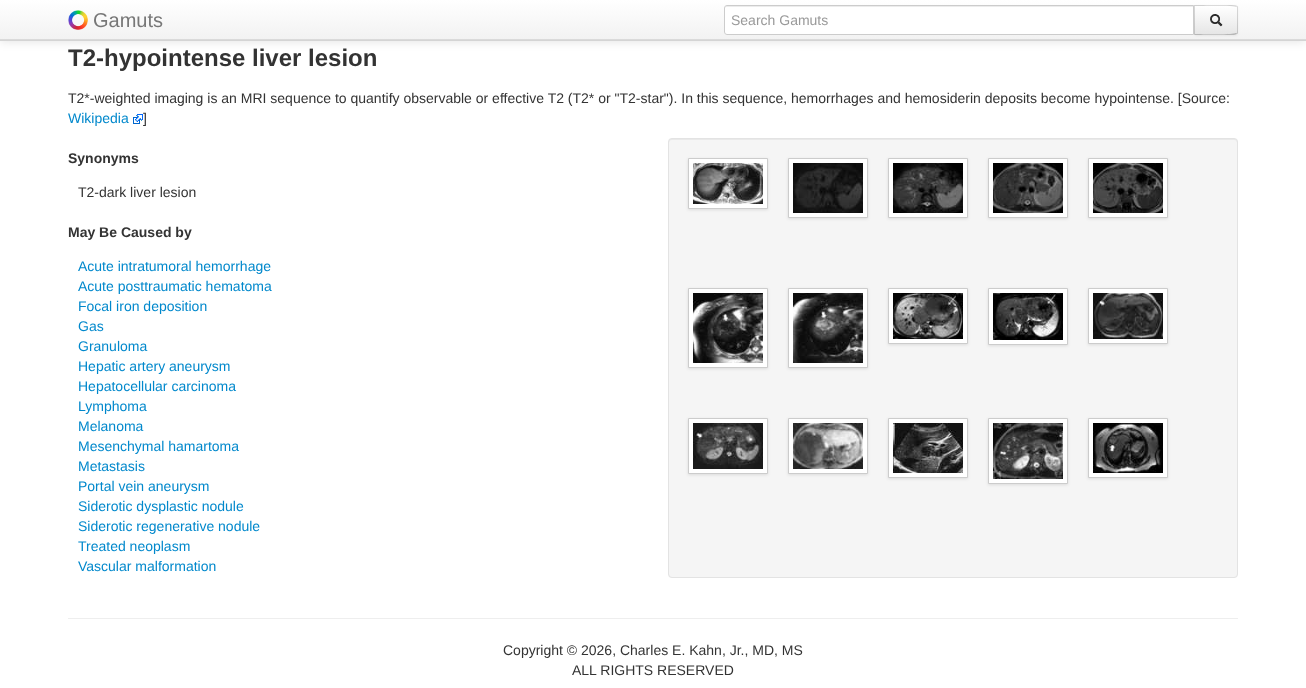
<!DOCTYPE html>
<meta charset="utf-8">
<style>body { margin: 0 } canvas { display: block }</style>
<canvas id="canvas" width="1306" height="688"></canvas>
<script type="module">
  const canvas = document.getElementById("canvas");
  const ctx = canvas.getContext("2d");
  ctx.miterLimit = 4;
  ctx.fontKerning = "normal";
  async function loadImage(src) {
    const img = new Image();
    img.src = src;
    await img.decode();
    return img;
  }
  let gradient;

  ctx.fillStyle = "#ffffff";
  ctx.fillRect(0, 0, 1306, 688);
  ctx.fillStyle = "rgba(0, 0, 0, 0.1)";
  ctx.filter = "blur(5px)";
  ctx.beginPath();
  ctx.rect(0, 1, 1306, 41);
  ctx.fill();
  ctx.filter = "none";
  gradient = ctx.createLinearGradient(653, 0, 653, 40);
  gradient.addColorStop(0, "#ffffff");
  gradient.addColorStop(1, "#f2f2f2");
  ctx.fillStyle = gradient;
  ctx.fillRect(0, 0, 1306, 39);
  ctx.fillStyle = "#dadada";
  ctx.fillRect(0, 39, 1306, 1);
  ctx.fillStyle = "#d4d4d4";
  ctx.fillRect(0, 40, 1306, 1);
  ctx.drawImage(await loadImage("img1.png"), 68, 10, 20, 20);
  ctx.font = "20px Liberation Sans";
  ctx.fillStyle = "#777777";
  ctx.fillText("Gamuts", 93, 27);
  ctx.fillStyle = "rgba(0, 0, 0, 0.05)";
  ctx.filter = "blur(1px)";
  ctx.beginPath();
  ctx.roundRect(1194, 6, 44, 30, 3);
  ctx.fill();
  ctx.filter = "none";
  ctx.fillStyle = "#ffffff";
  ctx.beginPath();
  ctx.roundRect(724, 5, 470, 30, [3, 0, 0, 3]);
  ctx.fill();
  ctx.fillStyle = "#ececec";
  ctx.beginPath();
  ctx.moveTo(727, 7);
  ctx.lineTo(1193, 7);
  ctx.lineTo(1193, 6);
  ctx.lineTo(727, 6);
  ctx.bezierCurveTo(726, 6, 725, 7, 725, 8);
  ctx.bezierCurveTo(725, 7, 726, 7, 727, 7);
  ctx.closePath();
  ctx.fill();
  ctx.beginPath();
  ctx.roundRect(724.5, 5.5, 469, 29, [2.5, 0, 0, 2.5]);
  ctx.strokeStyle = "#cccccc";
  ctx.stroke();
  ctx.font = "14px Liberation Sans";
  ctx.fillStyle = "#999999";
  ctx.fillText("Search Gamuts", 731, 25);
  ctx.fillStyle = "#f5f5f5";
  ctx.beginPath();
  ctx.roundRect(1194, 5, 44, 30, [0, 3, 3, 0]);
  ctx.fill();
  ctx.save();
  ctx.beginPath();
  ctx.roundRect(1194, 5, 44, 30, [0, 3, 3, 0]);
  ctx.clip();
  gradient = ctx.createLinearGradient(1216, 6, 1216, 34);
  gradient.addColorStop(0, "#ffffff");
  gradient.addColorStop(1, "#e6e6e6");
  ctx.fillStyle = gradient;
  ctx.fillRect(1194, 6, 44, 28);
  ctx.restore();
  ctx.fillStyle = "rgba(0, 0, 0, 0.15)";
  ctx.beginPath();
  ctx.moveTo(1194, 5);
  ctx.lineTo(1195, 6);
  ctx.bezierCurveTo(1200, 6, 1235, 5, 1236, 7);
  ctx.lineTo(1237, 6);
  ctx.bezierCurveTo(1236, 5, 1233, 5, 1228, 5);
  ctx.closePath();
  ctx.fill();
  ctx.beginPath();
  ctx.moveTo(1238, 33.5);
  ctx.lineTo(1237, 34);
  ctx.lineTo(1236.5, 33.5);
  ctx.bezierCurveTo(1237, 33, 1237, 32.5, 1237, 32);
  ctx.lineTo(1237, 8);
  ctx.bezierCurveTo(1237, 7.5, 1237, 7, 1236.5, 6.5);
  ctx.lineTo(1237, 6);
  ctx.lineTo(1238, 6.5);
  ctx.closePath();
  ctx.fill();
  ctx.fillStyle = "rgba(0, 0, 0, 0.25)";
  ctx.beginPath();
  ctx.moveTo(1228, 35);
  ctx.bezierCurveTo(1233, 35, 1236, 35, 1237, 34);
  ctx.lineTo(1236, 33);
  ctx.bezierCurveTo(1235, 35, 1200, 34, 1195, 34);
  ctx.lineTo(1194, 35);
  ctx.closePath();
  ctx.fill();
  ctx.fillStyle = "rgba(0, 0, 0, 0.15)";
  ctx.beginPath();
  ctx.moveTo(1194, 5);
  ctx.lineTo(1194, 35);
  ctx.lineTo(1195, 34);
  ctx.lineTo(1195, 6);
  ctx.closePath();
  ctx.fill();
  ctx.drawImage(await loadImage("img2.png"), 1210, 14, 13, 13);
  ctx.font = "bold 24px Liberation Sans";
  ctx.fillStyle = "#333333";
  ctx.fillText("T2-hypointense liver lesion", 68, 66);
  ctx.font = "14px Liberation Sans";
  ctx.fillText("T2*-weighted imaging is an MRI sequence to quantify observable or effective T2 (T2* or \"T2-star\"). In this sequence, hemorrhages and hemosiderin deposits become hypointense. [Source:", 68, 103);
  ctx.fillStyle = "#0088cc";
  ctx.fillText("Wikipedia", 68, 123);
  ctx.drawImage(await loadImage("img3.png"), 133, 114, 10, 10);
  ctx.fillStyle = "#333333";
  ctx.fillText("]", 143, 123);
  ctx.font = "bold 14px Liberation Sans";
  ctx.fillText("Synonyms", 68, 163);
  ctx.font = "14px Liberation Sans";
  ctx.fillText("T2-dark liver lesion", 78, 197);
  ctx.font = "bold 14px Liberation Sans";
  ctx.fillText("May Be Caused by", 68, 237);
  ctx.font = "14px Liberation Sans";
  ctx.fillStyle = "#0088cc";
  ctx.fillText("Acute intratumoral hemorrhage", 78, 271);
  ctx.fillText("Acute posttraumatic hematoma", 78, 291);
  ctx.fillText("Focal iron deposition", 78, 311);
  ctx.fillText("Gas", 78, 331);
  ctx.fillText("Granuloma", 78, 351);
  ctx.fillText("Hepatic artery aneurysm", 78, 371);
  ctx.fillText("Hepatocellular carcinoma", 78, 391);
  ctx.fillText("Lymphoma", 78, 411);
  ctx.fillText("Melanoma", 78, 431);
  ctx.fillText("Mesenchymal hamartoma", 78, 451);
  ctx.fillText("Metastasis", 78, 471);
  ctx.fillText("Portal vein aneurysm", 78, 491);
  ctx.fillText("Siderotic dysplastic nodule", 78, 511);
  ctx.fillText("Siderotic regenerative nodule", 78, 531);
  ctx.fillText("Treated neoplasm", 78, 551);
  ctx.fillText("Vascular malformation", 78, 571);
  ctx.fillStyle = "#f5f5f5";
  ctx.beginPath();
  ctx.roundRect(668, 138, 570, 440, 4);
  ctx.fill();
  ctx.fillStyle = "#e9e9e9";
  ctx.beginPath();
  ctx.moveTo(672, 140);
  ctx.lineTo(1234, 140);
  ctx.bezierCurveTo(1236, 140, 1237, 141, 1237, 143);
  ctx.lineTo(1237, 142);
  ctx.bezierCurveTo(1237, 140, 1236, 139, 1234, 139);
  ctx.lineTo(672, 139);
  ctx.bezierCurveTo(670, 139, 669, 140, 669, 142);
  ctx.lineTo(669, 143);
  ctx.bezierCurveTo(669, 141, 670, 140, 672, 140);
  ctx.closePath();
  ctx.fill();
  ctx.beginPath();
  ctx.roundRect(668.5, 138.5, 569, 439, 3.5);
  ctx.strokeStyle = "#e3e3e3";
  ctx.stroke();
  ctx.fillStyle = "rgba(0, 0, 0, 0.1)";
  ctx.filter = "blur(1.5px)";
  ctx.beginPath();
  ctx.rect(688, 159, 80, 51);
  ctx.fill();
  ctx.filter = "none";
  ctx.fillStyle = "#ffffff";
  ctx.beginPath();
  ctx.rect(688.5, 158.5, 79, 50);
  ctx.fill();
  ctx.strokeStyle = "#cccccc";
  ctx.stroke();
  ctx.drawImage(await loadImage("img4.png"), 693, 163, 70, 41);
  ctx.fillStyle = "rgba(0, 0, 0, 0.1)";
  ctx.filter = "blur(1.5px)";
  ctx.beginPath();
  ctx.rect(788, 159, 80, 60);
  ctx.fill();
  ctx.filter = "none";
  ctx.fillStyle = "#ffffff";
  ctx.beginPath();
  ctx.rect(788.5, 158.5, 79, 59);
  ctx.fill();
  ctx.stroke();
  ctx.drawImage(await loadImage("img5.png"), 793, 163, 70, 50);
  ctx.fillStyle = "rgba(0, 0, 0, 0.1)";
  ctx.filter = "blur(1.5px)";
  ctx.beginPath();
  ctx.rect(888, 159, 80, 60);
  ctx.fill();
  ctx.filter = "none";
  ctx.fillStyle = "#ffffff";
  ctx.beginPath();
  ctx.rect(888.5, 158.5, 79, 59);
  ctx.fill();
  ctx.stroke();
  ctx.drawImage(await loadImage("img6.png"), 893, 163, 70, 50);
  ctx.fillStyle = "rgba(0, 0, 0, 0.1)";
  ctx.filter = "blur(1.5px)";
  ctx.beginPath();
  ctx.rect(988, 159, 80, 60);
  ctx.fill();
  ctx.filter = "none";
  ctx.fillStyle = "#ffffff";
  ctx.beginPath();
  ctx.rect(988.5, 158.5, 79, 59);
  ctx.fill();
  ctx.stroke();
  ctx.drawImage(await loadImage("img7.png"), 993, 163, 70, 50);
  ctx.fillStyle = "rgba(0, 0, 0, 0.1)";
  ctx.filter = "blur(1.5px)";
  ctx.beginPath();
  ctx.rect(1088, 159, 80, 60);
  ctx.fill();
  ctx.filter = "none";
  ctx.fillStyle = "#ffffff";
  ctx.beginPath();
  ctx.rect(1088.5, 158.5, 79, 59);
  ctx.fill();
  ctx.stroke();
  ctx.drawImage(await loadImage("img8.png"), 1093, 163, 70, 50);
  ctx.fillStyle = "rgba(0, 0, 0, 0.1)";
  ctx.filter = "blur(1.5px)";
  ctx.beginPath();
  ctx.rect(688, 289, 80, 80);
  ctx.fill();
  ctx.filter = "none";
  ctx.fillStyle = "#ffffff";
  ctx.beginPath();
  ctx.rect(688.5, 288.5, 79, 79);
  ctx.fill();
  ctx.stroke();
  ctx.drawImage(await loadImage("img9.png"), 693, 293, 70, 70);
  ctx.fillStyle = "rgba(0, 0, 0, 0.1)";
  ctx.filter = "blur(1.5px)";
  ctx.beginPath();
  ctx.rect(788, 289, 80, 80);
  ctx.fill();
  ctx.filter = "none";
  ctx.fillStyle = "#ffffff";
  ctx.beginPath();
  ctx.rect(788.5, 288.5, 79, 79);
  ctx.fill();
  ctx.stroke();
  ctx.drawImage(await loadImage("img10.png"), 793, 293, 70, 70);
  ctx.fillStyle = "rgba(0, 0, 0, 0.1)";
  ctx.filter = "blur(1.5px)";
  ctx.beginPath();
  ctx.rect(888, 289, 80, 56);
  ctx.fill();
  ctx.filter = "none";
  ctx.fillStyle = "#ffffff";
  ctx.beginPath();
  ctx.rect(888.5, 288.5, 79, 55);
  ctx.fill();
  ctx.stroke();
  ctx.drawImage(await loadImage("img11.png"), 893, 293, 70, 46);
  ctx.fillStyle = "rgba(0, 0, 0, 0.1)";
  ctx.filter = "blur(1.5px)";
  ctx.beginPath();
  ctx.rect(988, 289, 80, 57);
  ctx.fill();
  ctx.filter = "none";
  ctx.fillStyle = "#ffffff";
  ctx.beginPath();
  ctx.rect(988.5, 288.5, 79, 56);
  ctx.fill();
  ctx.stroke();
  ctx.drawImage(await loadImage("img12.png"), 993, 293, 70, 47);
  ctx.fillStyle = "rgba(0, 0, 0, 0.1)";
  ctx.filter = "blur(1.5px)";
  ctx.beginPath();
  ctx.rect(1088, 289, 80, 56);
  ctx.fill();
  ctx.filter = "none";
  ctx.fillStyle = "#ffffff";
  ctx.beginPath();
  ctx.rect(1088.5, 288.5, 79, 55);
  ctx.fill();
  ctx.stroke();
  ctx.drawImage(await loadImage("img13.png"), 1093, 293, 70, 46);
  ctx.fillStyle = "rgba(0, 0, 0, 0.1)";
  ctx.filter = "blur(1.5px)";
  ctx.beginPath();
  ctx.rect(688, 419, 80, 56);
  ctx.fill();
  ctx.filter = "none";
  ctx.fillStyle = "#ffffff";
  ctx.beginPath();
  ctx.rect(688.5, 418.5, 79, 55);
  ctx.fill();
  ctx.stroke();
  ctx.drawImage(await loadImage("img14.png"), 693, 423, 70, 46);
  ctx.fillStyle = "rgba(0, 0, 0, 0.1)";
  ctx.filter = "blur(1.5px)";
  ctx.beginPath();
  ctx.rect(788, 419, 80, 56);
  ctx.fill();
  ctx.filter = "none";
  ctx.fillStyle = "#ffffff";
  ctx.beginPath();
  ctx.rect(788.5, 418.5, 79, 55);
  ctx.fill();
  ctx.stroke();
  ctx.drawImage(await loadImage("img15.png"), 793, 423, 70, 46);
  ctx.fillStyle = "rgba(0, 0, 0, 0.1)";
  ctx.filter = "blur(1.5px)";
  ctx.beginPath();
  ctx.rect(888, 419, 80, 60);
  ctx.fill();
  ctx.filter = "none";
  ctx.fillStyle = "#ffffff";
  ctx.beginPath();
  ctx.rect(888.5, 418.5, 79, 59);
  ctx.fill();
  ctx.stroke();
  ctx.drawImage(await loadImage("img16.png"), 893, 423, 70, 50);
  ctx.fillStyle = "rgba(0, 0, 0, 0.1)";
  ctx.filter = "blur(1.5px)";
  ctx.beginPath();
  ctx.rect(988, 419, 80, 66);
  ctx.fill();
  ctx.filter = "none";
  ctx.fillStyle = "#ffffff";
  ctx.beginPath();
  ctx.rect(988.5, 418.5, 79, 65);
  ctx.fill();
  ctx.stroke();
  ctx.drawImage(await loadImage("img17.png"), 993, 423, 70, 56);
  ctx.fillStyle = "rgba(0, 0, 0, 0.1)";
  ctx.filter = "blur(1.5px)";
  ctx.beginPath();
  ctx.rect(1088, 419, 80, 60);
  ctx.fill();
  ctx.filter = "none";
  ctx.fillStyle = "#ffffff";
  ctx.beginPath();
  ctx.rect(1088.5, 418.5, 79, 59);
  ctx.fill();
  ctx.stroke();
  ctx.drawImage(await loadImage("img18.png"), 1093, 423, 70, 50);
  ctx.fillStyle = "#eeeeee";
  ctx.fillRect(68, 618, 1170, 1);
  ctx.fillStyle = "#333333";
  ctx.fillText("Copyright © 2026, Charles E. Kahn, Jr., MD, MS", 503, 655);
  ctx.fillText("ALL RIGHTS RESERVED", 572, 675);
</script>
